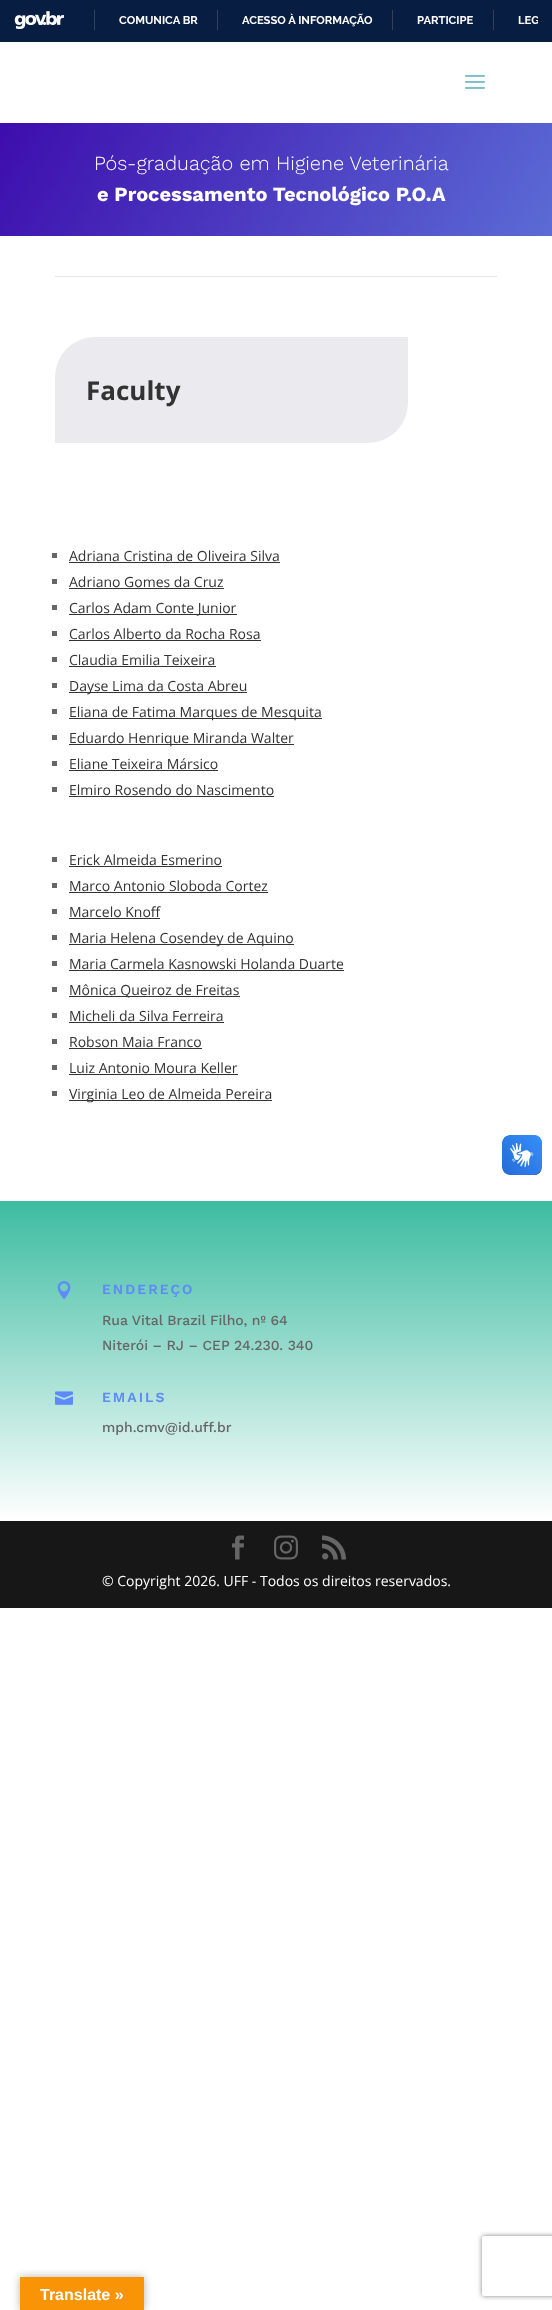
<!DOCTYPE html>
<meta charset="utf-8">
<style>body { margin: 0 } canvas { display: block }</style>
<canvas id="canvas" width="552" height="2310"></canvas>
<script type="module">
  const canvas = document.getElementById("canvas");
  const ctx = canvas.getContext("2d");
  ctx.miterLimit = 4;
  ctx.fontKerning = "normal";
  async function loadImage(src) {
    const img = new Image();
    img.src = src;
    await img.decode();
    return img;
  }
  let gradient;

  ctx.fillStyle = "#ffffff";
  ctx.fillRect(0, 0, 552, 2310);
  ctx.fillStyle = "#071d41";
  ctx.fillRect(0, 0, 552, 42);
  ctx.drawImage(await loadImage("img1.png"), 14, 11, 50, 18);
  ctx.fillStyle = "#32425b";
  ctx.fillRect(94, 10, 1, 20);
  ctx.font = "bold 11.25px Raleway";
  ctx.fillStyle = "#ffffff";
  ctx.fillText("COMUNICA BR", 119, 24);
  ctx.fillStyle = "#32425b";
  ctx.fillRect(217, 10, 1, 20);
  ctx.fillStyle = "#ffffff";
  ctx.fillText("ACESSO À INFORMAÇÃO", 242, 24);
  ctx.fillStyle = "#32425b";
  ctx.fillRect(392, 10, 1, 20);
  ctx.fillStyle = "#ffffff";
  ctx.fillText("PARTICIPE", 417, 24);
  ctx.fillStyle = "#32425b";
  ctx.fillRect(493, 10, 1, 20);
  ctx.save();
  ctx.beginPath();
  ctx.rect(74, 7, 464, 26);
  ctx.clip();
  ctx.fillStyle = "#ffffff";
  ctx.fillText("LEG", 518, 24);
  ctx.restore();
  ctx.drawImage(await loadImage("img2.png"), 465, 74, 20, 15);
  gradient = ctx.createLinearGradient(45, 46, 507, 313);
  gradient.addColorStop(0, "#3d0dad");
  gradient.addColorStop(1, "#5b6bd5");
  ctx.fillStyle = gradient;
  ctx.fillRect(0, 123, 552, 113);
  ctx.font = "300 20px Work Sans";
  ctx.fillStyle = "#ffffff";
  ctx.fillText("Pós-graduação em Higiene Veterinária", 94, 170);
  ctx.font = "bold 20px Work Sans";
  ctx.fillText("e Processamento Tecnológico P.O.A", 97, 201);
  ctx.fillStyle = "#e5e5e5";
  ctx.fillRect(55, 276, 442, 1);
  ctx.fillStyle = "#ebebef";
  ctx.beginPath();
  ctx.roundRect(55, 337, 353, 106, [40, 0, 40, 0]);
  ctx.fill();
  ctx.font = "bold 26px Open Sans";
  ctx.fillStyle = "#333333";
  ctx.fillText("Faculty", 86, 400);
  ctx.fillStyle = "#666666";
  ctx.fillRect(52, 553, 5, 5);
  ctx.font = "14px Open Sans";
  ctx.fillStyle = "#333333";
  ctx.fillText("Adriana Cristina de Oliveira Silva", 69, 561);
  ctx.fillRect(69, 562, 211, 1);
  ctx.fillStyle = "#666666";
  ctx.fillRect(52, 579, 5, 5);
  ctx.fillStyle = "#333333";
  ctx.fillText("Adriano Gomes da Cruz", 69, 587);
  ctx.fillRect(69, 588, 155, 1);
  ctx.fillStyle = "#666666";
  ctx.fillRect(52, 605, 5, 5);
  ctx.fillStyle = "#333333";
  ctx.fillRect(69, 614, 168, 1);
  ctx.fillText("Carlos Adam Conte Junior", 69, 613);
  ctx.fillStyle = "#666666";
  ctx.fillRect(52, 631, 5, 5);
  ctx.fillStyle = "#333333";
  ctx.fillText("Carlos Alberto da Rocha Rosa", 69, 639);
  ctx.fillRect(69, 640, 192, 1);
  ctx.fillStyle = "#666666";
  ctx.fillRect(52, 657, 5, 5);
  ctx.fillStyle = "#333333";
  ctx.fillText("Claudia Emilia Teixeira", 69, 665);
  ctx.fillRect(69, 666, 147, 1);
  ctx.fillStyle = "#666666";
  ctx.fillRect(52, 683, 5, 5);
  ctx.fillStyle = "#333333";
  ctx.fillRect(69, 692, 178, 1);
  ctx.fillText("Dayse Lima da Costa Abreu", 69, 691);
  ctx.fillStyle = "#666666";
  ctx.fillRect(52, 709, 5, 5);
  ctx.fillStyle = "#333333";
  ctx.fillRect(69, 718, 253, 1);
  ctx.fillText("Eliana de Fatima Marques de Mesquita", 69, 717);
  ctx.fillStyle = "#666666";
  ctx.fillRect(52, 735, 5, 5);
  ctx.fillStyle = "#333333";
  ctx.fillRect(69, 744, 225, 1);
  ctx.fillText("Eduardo Henrique Miranda Walter", 69, 743);
  ctx.fillStyle = "#666666";
  ctx.fillRect(52, 761, 5, 5);
  ctx.fillStyle = "#333333";
  ctx.fillText("Eliane Teixeira Mársico", 69, 769);
  ctx.fillRect(69, 770, 149, 1);
  ctx.fillStyle = "#666666";
  ctx.fillRect(52, 787, 5, 5);
  ctx.fillStyle = "#333333";
  ctx.fillText("Elmiro Rosendo do Nascimento", 69, 795);
  ctx.fillRect(69, 796, 205, 1);
  ctx.fillStyle = "#666666";
  ctx.fillRect(52, 857, 5, 5);
  ctx.fillStyle = "#333333";
  ctx.fillText("Erick Almeida Esmerino", 69, 865);
  ctx.fillRect(69, 866, 153, 1);
  ctx.fillStyle = "#666666";
  ctx.fillRect(52, 883, 5, 5);
  ctx.fillStyle = "#333333";
  ctx.fillText("Marco Antonio Sloboda Cortez", 69, 891);
  ctx.fillRect(69, 892, 199, 1);
  ctx.fillStyle = "#666666";
  ctx.fillRect(52, 909, 5, 5);
  ctx.fillStyle = "#333333";
  ctx.fillText("Marcelo Knoff", 69, 917);
  ctx.fillRect(69, 918, 91, 1);
  ctx.fillStyle = "#666666";
  ctx.fillRect(52, 935, 5, 5);
  ctx.fillStyle = "#333333";
  ctx.fillRect(69, 944, 225, 1);
  ctx.fillText("Maria Helena Cosendey de Aquino", 69, 943);
  ctx.fillStyle = "#666666";
  ctx.fillRect(52, 961, 5, 5);
  ctx.fillStyle = "#333333";
  ctx.fillText("Maria Carmela Kasnowski Holanda Duarte", 69, 969);
  ctx.fillRect(69, 970, 275, 1);
  ctx.fillStyle = "#666666";
  ctx.fillRect(52, 987, 5, 5);
  ctx.fillStyle = "#333333";
  ctx.fillRect(69, 996, 171, 1);
  ctx.fillText("Mônica Queiroz de Freitas", 69, 995);
  ctx.fillStyle = "#666666";
  ctx.fillRect(52, 1013, 5, 5);
  ctx.fillStyle = "#333333";
  ctx.fillText("Micheli da Silva Ferreira", 69, 1021);
  ctx.fillRect(69, 1022, 155, 1);
  ctx.fillStyle = "#666666";
  ctx.fillRect(52, 1039, 5, 5);
  ctx.fillStyle = "#333333";
  ctx.fillText("Robson Maia Franco", 69, 1047);
  ctx.fillRect(69, 1048, 133, 1);
  ctx.fillStyle = "#666666";
  ctx.fillRect(52, 1065, 5, 5);
  ctx.fillStyle = "#333333";
  ctx.fillText("Luiz Antonio Moura Keller", 69, 1073);
  ctx.fillRect(69, 1074, 169, 1);
  ctx.fillStyle = "#666666";
  ctx.fillRect(52, 1091, 5, 5);
  ctx.fillStyle = "#333333";
  ctx.fillRect(69, 1100, 203, 1);
  ctx.fillText("Virginia Leo de Almeida Pereira", 69, 1099);
  gradient = ctx.createLinearGradient(276, 1201, 276, 1521);
  gradient.addColorStop(0, "#3cbca1");
  gradient.addColorStop(1, "#ffffff");
  ctx.fillStyle = gradient;
  ctx.fillRect(0, 1201, 552, 316);
  ctx.drawImage(await loadImage("img3.png"), 57, 1281, 14, 18);
  ctx.letterSpacing = "2px";
  ctx.font = "600 14px Work Sans";
  ctx.fillStyle = "#5e89fb";
  ctx.fillText("ENDEREÇO", 102, 1294);
  ctx.letterSpacing = "0px";
  ctx.font = "500 14px Work Sans";
  ctx.fillStyle = "#666666";
  ctx.fillText("Rua Vital Brazil Filho, nº 64", 102, 1325);
  ctx.fillText("Niterói – RJ – CEP 24.230. 340", 102, 1350);
  ctx.drawImage(await loadImage("img4.png"), 55, 1391, 18, 14);
  ctx.letterSpacing = "2px";
  ctx.font = "600 14px Work Sans";
  ctx.fillStyle = "#5e89fb";
  ctx.fillText("EMAILS", 102, 1402);
  ctx.letterSpacing = "0px";
  ctx.font = "500 14px Work Sans";
  ctx.fillStyle = "#666666";
  ctx.fillText("mph.cmv@id.uff.br", 102, 1432);
  ctx.fillStyle = "#171717";
  ctx.fillRect(0, 1521, 552, 87);
  ctx.drawImage(await loadImage("img5.png"), 232, 1535, 12, 25);
  ctx.drawImage(await loadImage("img6.png"), 274, 1535, 24, 25);
  ctx.drawImage(await loadImage("img7.png"), 322, 1535, 24, 25);
  ctx.font = "14px Open Sans";
  ctx.fillStyle = "#ffffff";
  ctx.fillText("© Copyright 2026. UFF - Todos os direitos reservados.", 102, 1586);
  ctx.drawImage(await loadImage("img8.png"), 502, 1135, 40, 40);
  ctx.drawImage(await loadImage("img9.png"), 502, 1135, 40, 40);
  ctx.fillStyle = "rgba(0, 0, 0, 0.3)";
  ctx.filter = "blur(4.5px)";
  ctx.beginPath();
  ctx.rect(20, 2277, 124, 33);
  ctx.fill();
  ctx.filter = "none";
  ctx.fillStyle = "#f89406";
  ctx.fillRect(20, 2277, 124, 33);
  ctx.font = "bold 16px Liberation Sans";
  ctx.fillStyle = "#ffffff";
  ctx.fillText("Translate »", 40, 2300);
  ctx.save();
  ctx.beginPath();
  ctx.moveTo(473, 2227);
  ctx.lineTo(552, 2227);
  ctx.lineTo(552, 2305);
  ctx.lineTo(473, 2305);
  ctx.closePath();
  ctx.moveTo(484, 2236);
  ctx.lineTo(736, 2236);
  ctx.bezierCurveTo(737, 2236, 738, 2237, 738, 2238);
  ctx.lineTo(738, 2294);
  ctx.bezierCurveTo(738, 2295, 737, 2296, 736, 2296);
  ctx.lineTo(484, 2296);
  ctx.bezierCurveTo(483, 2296, 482, 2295, 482, 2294);
  ctx.lineTo(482, 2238);
  ctx.bezierCurveTo(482, 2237, 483, 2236, 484, 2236);
  ctx.closePath();
  ctx.clip("evenodd");
  ctx.fillStyle = "#808080";
  ctx.filter = "blur(2.5px)";
  ctx.beginPath();
  ctx.roundRect(482, 2236, 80, 60, 2);
  ctx.fill();
  ctx.filter = "none";
  ctx.restore();
</script>
